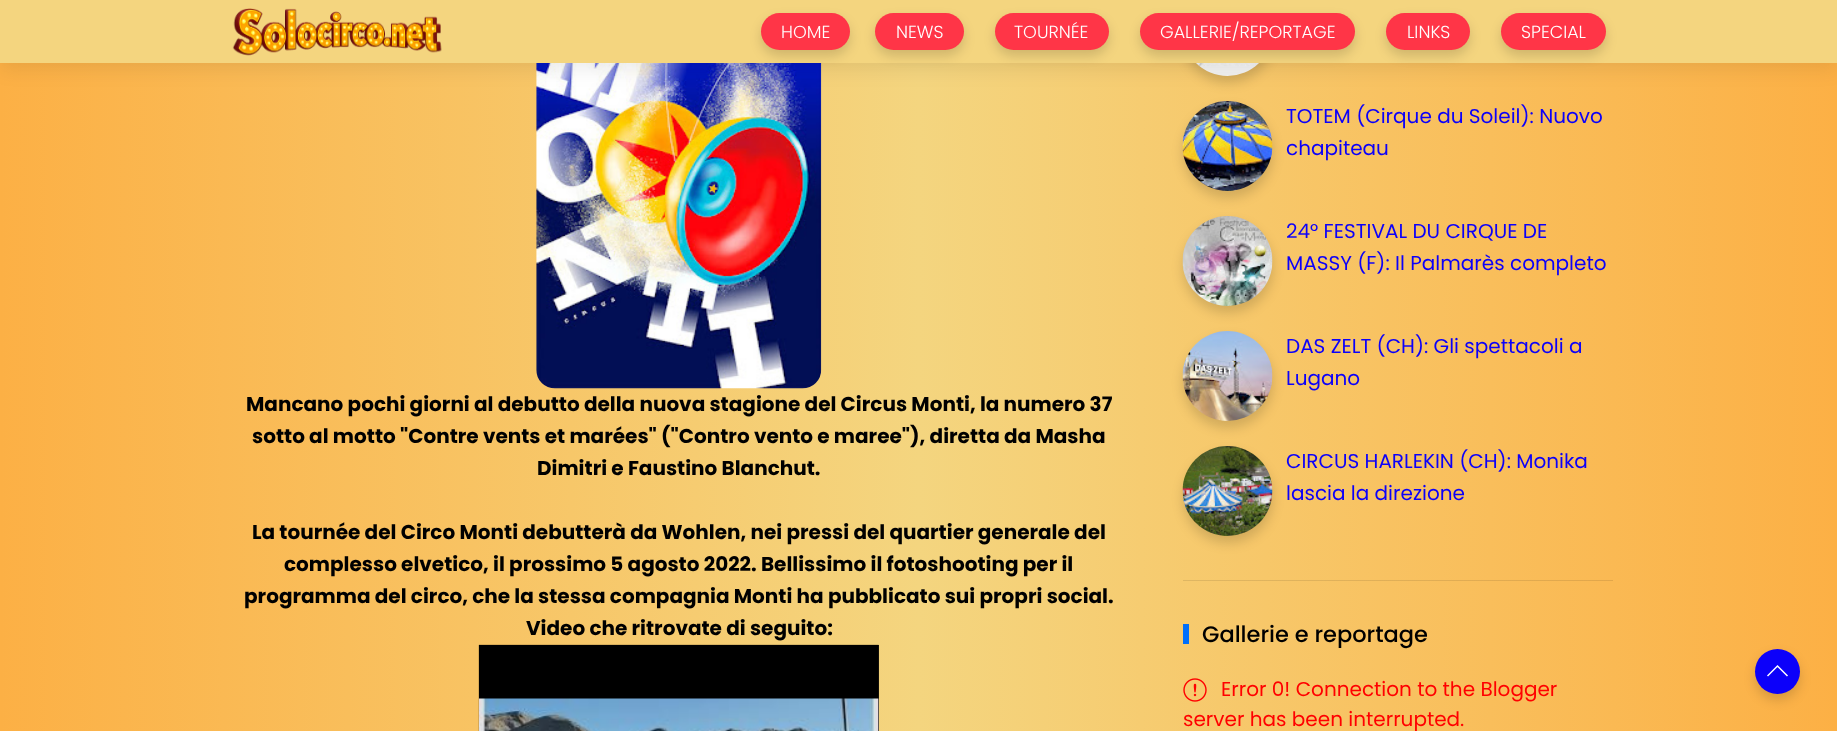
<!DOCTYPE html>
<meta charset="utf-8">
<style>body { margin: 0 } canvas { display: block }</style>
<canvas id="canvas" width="1837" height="731"></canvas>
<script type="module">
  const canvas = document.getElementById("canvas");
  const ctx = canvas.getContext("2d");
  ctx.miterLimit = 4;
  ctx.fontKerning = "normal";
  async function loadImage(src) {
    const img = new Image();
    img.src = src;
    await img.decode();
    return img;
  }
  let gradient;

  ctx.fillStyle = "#ffffff";
  ctx.fillRect(0, 0, 1837, 731);
  gradient = ctx.createLinearGradient(0, 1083, 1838, 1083);
  gradient.addColorStop(0, "#fcb045");
  gradient.addColorStop(0.5, "#f4d57f");
  gradient.addColorStop(1, "#fcb045");
  ctx.fillStyle = gradient;
  ctx.fillRect(0, 63, 1837, 668);
  gradient = ctx.createLinearGradient(0, 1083, 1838, 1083);
  gradient.addColorStop(0, "#e39e3e");
  gradient.addColorStop(0.5, "#dcc072");
  gradient.addColorStop(1, "#e39e3e");
  ctx.fillStyle = gradient;
  ctx.fillRect(1183, 580, 430, 1);
  ctx.drawImage(await loadImage("img2.png"), 536, 63, 286, 326);
  ctx.fillStyle = "rgba(0, 0, 0, 0.15)";
  ctx.filter = "blur(6px)";
  ctx.beginPath();
  ctx.roundRect(1183, -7, 90, 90, 45);
  ctx.fill();
  ctx.filter = "none";
  ctx.drawImage(await loadImage("img4.png"), 1196, 63, 63, 13);
  ctx.fillStyle = "rgba(0, 0, 0, 0.08)";
  ctx.filter = "blur(9.5px)";
  ctx.beginPath();
  ctx.rect(0, 6, 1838, 63);
  ctx.fill();
  ctx.filter = "none";
  ctx.fillStyle = "#f4d57f";
  ctx.fillRect(0, 0, 1837, 63);
  ctx.drawImage(await loadImage("img1.png"), 232, 8, 210, 48);
  ctx.fillStyle = "rgba(0, 0, 0, 0.15)";
  ctx.filter = "blur(6px)";
  ctx.beginPath();
  ctx.roundRect(761, 19, 89, 37, 18.5);
  ctx.fill();
  ctx.filter = "none";
  ctx.fillStyle = "#ff3547";
  ctx.beginPath();
  ctx.roundRect(761, 13, 89, 37, 18.5);
  ctx.fill();
  ctx.font = "300 17.5px Poppins";
  ctx.fillStyle = "#ffffff";
  ctx.fillText("HOME", 781, 38);
  ctx.fillStyle = "rgba(0, 0, 0, 0.15)";
  ctx.filter = "blur(6px)";
  ctx.beginPath();
  ctx.roundRect(875, 19, 89, 37, 18.5);
  ctx.fill();
  ctx.filter = "none";
  ctx.fillStyle = "#ff3547";
  ctx.beginPath();
  ctx.roundRect(875, 13, 89, 37, 18.5);
  ctx.fill();
  ctx.fillStyle = "#ffffff";
  ctx.fillText("NEWS", 896, 38);
  ctx.fillStyle = "rgba(0, 0, 0, 0.15)";
  ctx.filter = "blur(6px)";
  ctx.beginPath();
  ctx.roundRect(995, 19, 114, 37, 18.5);
  ctx.fill();
  ctx.filter = "none";
  ctx.fillStyle = "#ff3547";
  ctx.beginPath();
  ctx.roundRect(995, 13, 114, 37, 18.5);
  ctx.fill();
  ctx.fillStyle = "#ffffff";
  ctx.fillText("TOURNÉE", 1014, 38);
  ctx.fillStyle = "rgba(0, 0, 0, 0.15)";
  ctx.filter = "blur(6px)";
  ctx.beginPath();
  ctx.roundRect(1140, 19, 215, 37, 18.5);
  ctx.fill();
  ctx.filter = "none";
  ctx.fillStyle = "#ff3547";
  ctx.beginPath();
  ctx.roundRect(1140, 13, 215, 37, 18.5);
  ctx.fill();
  ctx.fillStyle = "#ffffff";
  ctx.fillText("GALLERIE/REPORTAGE", 1160, 38);
  ctx.fillStyle = "rgba(0, 0, 0, 0.15)";
  ctx.filter = "blur(6px)";
  ctx.beginPath();
  ctx.roundRect(1386, 19, 84, 37, 18.5);
  ctx.fill();
  ctx.filter = "none";
  ctx.fillStyle = "#ff3547";
  ctx.beginPath();
  ctx.roundRect(1386, 13, 84, 37, 18.5);
  ctx.fill();
  ctx.fillStyle = "#ffffff";
  ctx.fillText("LINKS", 1407, 38);
  ctx.fillStyle = "rgba(0, 0, 0, 0.15)";
  ctx.filter = "blur(6px)";
  ctx.beginPath();
  ctx.roundRect(1501, 19, 105, 37, 18.5);
  ctx.fill();
  ctx.filter = "none";
  ctx.fillStyle = "#ff3547";
  ctx.beginPath();
  ctx.roundRect(1501, 13, 105, 37, 18.5);
  ctx.fill();
  ctx.fillStyle = "#ffffff";
  ctx.fillText("SPECIAL", 1521, 38);
  ctx.font = "bold 20px Poppins";
  ctx.fillStyle = "#000000";
  ctx.fillText("Mancano pochi giorni al debutto della nuova stagione del Circus Monti, la numero 37", 246, 411);
  ctx.fillText("sotto al motto \"Contre vents et marées\" (\"Contro vento e maree\"), diretta da Masha", 252, 443);
  ctx.fillText("Dimitri e Faustino Blanchut.", 537, 475);
  ctx.fillText("La tournée del Circo Monti debutterà da Wohlen, nei pressi del quartier generale del", 252, 539);
  ctx.fillText("complesso elvetico, il prossimo 5 agosto 2022. Bellissimo il fotoshooting per il", 284, 571);
  ctx.fillText("programma del circo, che la stessa compagnia Monti ha pubblicato sui propri social.", 244, 603);
  ctx.fillText("Video che ritrovate di seguito:", 526, 635);
  ctx.drawImage(await loadImage("img3.png"), 478, 644, 401, 87);
  ctx.fillStyle = "rgba(0, 0, 0, 0.15)";
  ctx.filter = "blur(6px)";
  ctx.beginPath();
  ctx.roundRect(1183, 108, 90, 90, 45);
  ctx.fill();
  ctx.filter = "none";
  ctx.drawImage(await loadImage("img5.png"), 1182, 101, 91, 90);
  ctx.font = "20px Poppins";
  ctx.fillStyle = "#0c00fa";
  ctx.fillText("TOTEM (Cirque du Soleil): Nuovo", 1286, 123);
  ctx.fillText("chapiteau", 1286, 155);
  ctx.fillStyle = "rgba(0, 0, 0, 0.15)";
  ctx.filter = "blur(6px)";
  ctx.beginPath();
  ctx.roundRect(1183, 223, 90, 90, 45);
  ctx.fill();
  ctx.filter = "none";
  ctx.drawImage(await loadImage("img6.png"), 1182, 216, 91, 90);
  ctx.fillStyle = "#0c00fa";
  ctx.fillText("24° FESTIVAL DU CIRQUE DE", 1286, 238);
  ctx.fillText("MASSY (F): Il Palmarès completo", 1286, 270);
  ctx.fillStyle = "rgba(0, 0, 0, 0.15)";
  ctx.filter = "blur(6px)";
  ctx.beginPath();
  ctx.roundRect(1183, 338, 90, 90, 45);
  ctx.fill();
  ctx.filter = "none";
  ctx.drawImage(await loadImage("img7.png"), 1182, 331, 91, 90);
  ctx.fillStyle = "#0c00fa";
  ctx.fillText("DAS ZELT (CH): Gli spettacoli a", 1286, 353);
  ctx.fillText("Lugano", 1286, 385);
  ctx.fillStyle = "rgba(0, 0, 0, 0.15)";
  ctx.filter = "blur(6px)";
  ctx.beginPath();
  ctx.roundRect(1183, 453, 90, 90, 45);
  ctx.fill();
  ctx.filter = "none";
  ctx.drawImage(await loadImage("img8.png"), 1182, 446, 91, 90);
  ctx.fillStyle = "#0c00fa";
  ctx.fillText("CIRCUS HARLEKIN (CH): Monika", 1286, 468);
  ctx.fillText("lascia la direzione", 1286, 500);
  ctx.fillStyle = "#006ffa";
  ctx.fillRect(1183, 624, 6, 20);
  ctx.font = "500 22.5px Poppins";
  ctx.fillStyle = "#000000";
  ctx.fillText("Gallerie e reportage", 1202, 642);
  ctx.drawImage(await loadImage("img9.png"), 1183, 678, 24, 24);
  ctx.font = "20px Poppins";
  ctx.fillStyle = "#ff0000";
  ctx.fillText("Error 0! Connection to the Blogger", 1221, 696);
  ctx.fillText("server has been interrupted.", 1183, 726);
  ctx.fillStyle = "rgba(0, 0, 0, 0.15)";
  ctx.filter = "blur(6px)";
  ctx.beginPath();
  ctx.roundRect(1755, 655, 45, 45, 22.5);
  ctx.fill();
  ctx.filter = "none";
  ctx.fillStyle = "#0c00fa";
  ctx.beginPath();
  ctx.arc(1777.5, 671.5, 22.5, 0, Math.PI * 2);
  ctx.fill();
  ctx.beginPath();
  ctx.moveTo(1767.5, 676);
  ctx.lineTo(1777.5, 666);
  ctx.lineTo(1787.5, 676);
  ctx.strokeStyle = "#ffffff";
  ctx.lineWidth = 1.5;
  ctx.stroke();
</script>
